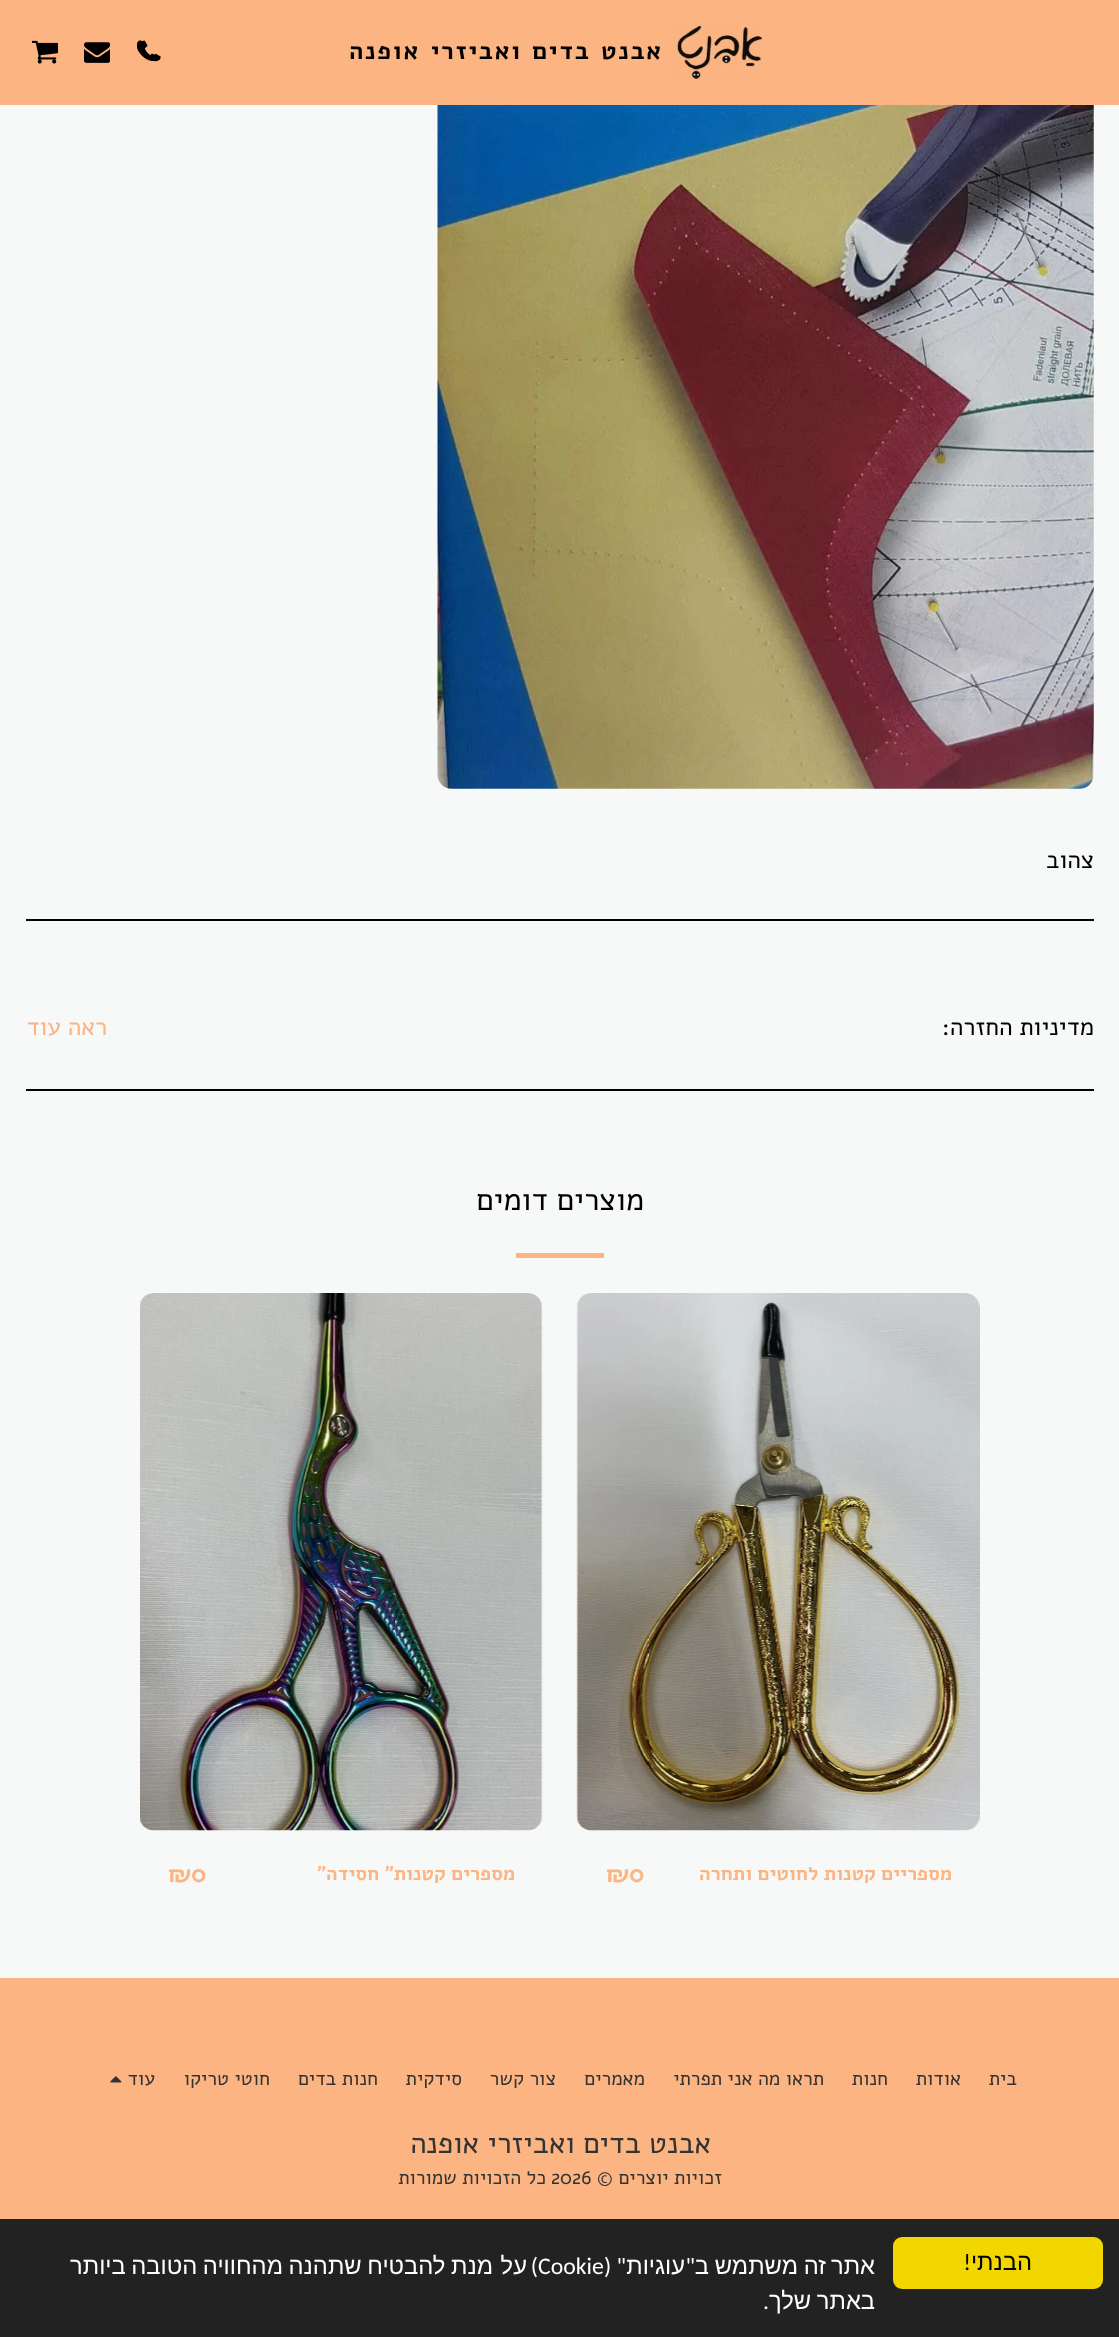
<!DOCTYPE html>
<meta charset="utf-8">
<style>body { margin: 0 } canvas { display: block }</style>
<canvas id="canvas" width="1119" height="2337"></canvas>
<script type="module">
  const canvas = document.getElementById("canvas");
  const ctx = canvas.getContext("2d");
  ctx.miterLimit = 4;
  ctx.fontKerning = "normal";
  async function loadImage(src) {
    const img = new Image();
    img.src = src;
    await img.decode();
    return img;
  }

  ctx.fillStyle = "#f7f9f8";
  ctx.fillRect(0, 0, 1119, 2337);
  ctx.fillStyle = "#fcb482";
  ctx.fillRect(0, 0, 1119, 105);
  ctx.drawImage(await loadImage("img1.png"), 674, 25, 89, 57);
  ctx.letterSpacing = "1.75px";
  ctx.wordSpacing = "2px";
  ctx.direction = "rtl";
  ctx.font = "bold 24.5px Alef";
  ctx.fillStyle = "#000000";
  ctx.fillText("אבנט בדים ואביזרי אופנה", 663, 59);
  ctx.drawImage(await loadImage("img2.png"), 137, 40, 18, 21);
  ctx.drawImage(await loadImage("img3.png"), 141, 40, 20, 22);
  ctx.drawImage(await loadImage("img4.png"), 84, 42, 26, 21);
  ctx.drawImage(await loadImage("img5.png"), 32, 40, 26, 24);
  ctx.drawImage(await loadImage("img6.png"), 437, 105, 657, 684);
  ctx.letterSpacing = "0px";
  ctx.wordSpacing = "0px";
  ctx.font = "24.5px Alef";
  ctx.fillText("צהוב", 1094, 868);
  ctx.fillRect(26, 919, 1068, 2);
  ctx.fillText("מדיניות החזרה:", 1094, 1035);
  ctx.fillStyle = "#fcb482";
  ctx.fillText("ראה עוד", 107, 1035);
  ctx.fillStyle = "#000000";
  ctx.fillRect(26, 1089, 1068, 2);
  ctx.font = "31px Alef";
  ctx.fillText("מוצרים דומים", 644, 1210);
  ctx.fillStyle = "#fcb482";
  ctx.fillRect(516, 1253, 88, 5);
  ctx.drawImage(await loadImage("img7.png"), 576, 1293, 404, 538);
  ctx.font = "bold 19.6px Alef";
  ctx.fillText("מספריים קטנות לחוטים ותחרה", 952, 1880);
  ctx.direction = "ltr";
  ctx.font = "bold 24.5px Alef";
  ctx.fillText("₪0", 606, 1882);
  ctx.drawImage(await loadImage("img8.png"), 140, 1293, 403, 538);
  ctx.direction = "rtl";
  ctx.font = "bold 19.6px Alef";
  ctx.fillText("מספרים קטנות״ חסידה״", 515, 1880);
  ctx.direction = "ltr";
  ctx.font = "bold 24.5px Alef";
  ctx.fillText("₪0", 168, 1882);
  ctx.fillRect(0, 1978, 1119, 241);
  ctx.direction = "rtl";
  ctx.font = "19.6px Alef";
  ctx.fillStyle = "#333333";
  ctx.fillText("בית", 1017, 2085);
  ctx.fillText("אודות", 961, 2085);
  ctx.fillText("חנות", 888, 2085);
  ctx.fillText("תראו מה אני תפרתי", 824, 2085);
  ctx.fillText("מאמרים", 645, 2085);
  ctx.fillText("צור קשר", 556, 2085);
  ctx.fillText("סידקית", 462, 2085);
  ctx.fillText("חנות בדים", 378, 2085);
  ctx.fillText("חוטי טריקו", 270, 2085);
  ctx.fillText("עוד", 155, 2085);
  ctx.drawImage(await loadImage("img9.png"), 110, 2076, 12, 7);
  ctx.font = "29.4px Alef";
  ctx.fillText("אבנט בדים ואביזרי אופנה", 711, 2153);
  ctx.font = "19.6px Alef";
  ctx.fillText("זכויות יוצרים ©", 722, 2184);
  ctx.direction = "ltr";
  ctx.fillText("2026", 551, 2184);
  ctx.direction = "rtl";
  ctx.fillText("כל הזכויות שמורות", 546, 2184);
  ctx.fillStyle = "#222222";
  ctx.fillRect(0, 2219, 1119, 118);
  ctx.fillStyle = "#f1d600";
  ctx.beginPath();
  ctx.roundRect(893, 2237, 210, 52, 9);
  ctx.fill();
  ctx.font = "23.75px Liberation Sans";
  ctx.fillStyle = "#000000";
  ctx.fillText("הבנתי", 1032, 2270);
  ctx.font = "23.75px Carlito";
  ctx.fillText("!", 971, 2270);
  ctx.font = "23.75px Liberation Sans";
  ctx.fillStyle = "#ffffff";
  ctx.fillText("אתר", 875, 2274);
  ctx.fillText("זה", 826, 2274);
  ctx.fillText("משתמש", 798, 2274);
  ctx.fillText("ב", 709, 2274);
  ctx.font = "23.75px Carlito";
  ctx.fillText("\"", 695, 2274);
  ctx.font = "23.75px Liberation Sans";
  ctx.fillText("עוגיות", 685, 2274);
  ctx.font = "23.75px Carlito";
  ctx.fillText("\" (", 626, 2274);
  ctx.direction = "ltr";
  ctx.fillText("Cookie", 538, 2274);
  ctx.direction = "rtl";
  ctx.fillText(")", 538, 2274);
  ctx.font = "23.75px Liberation Sans";
  ctx.fillText("על", 527, 2274);
  ctx.wordSpacing = "-1px";
  ctx.fillText("מנת להבטיח שתהנה מהחוויה הטובה ביותר", 493, 2274);
  ctx.fillText("באתר שלך", 875, 2309);
  ctx.wordSpacing = "0px";
  ctx.font = "23.75px Carlito";
  ctx.fillText(".", 769, 2309);
</script>
